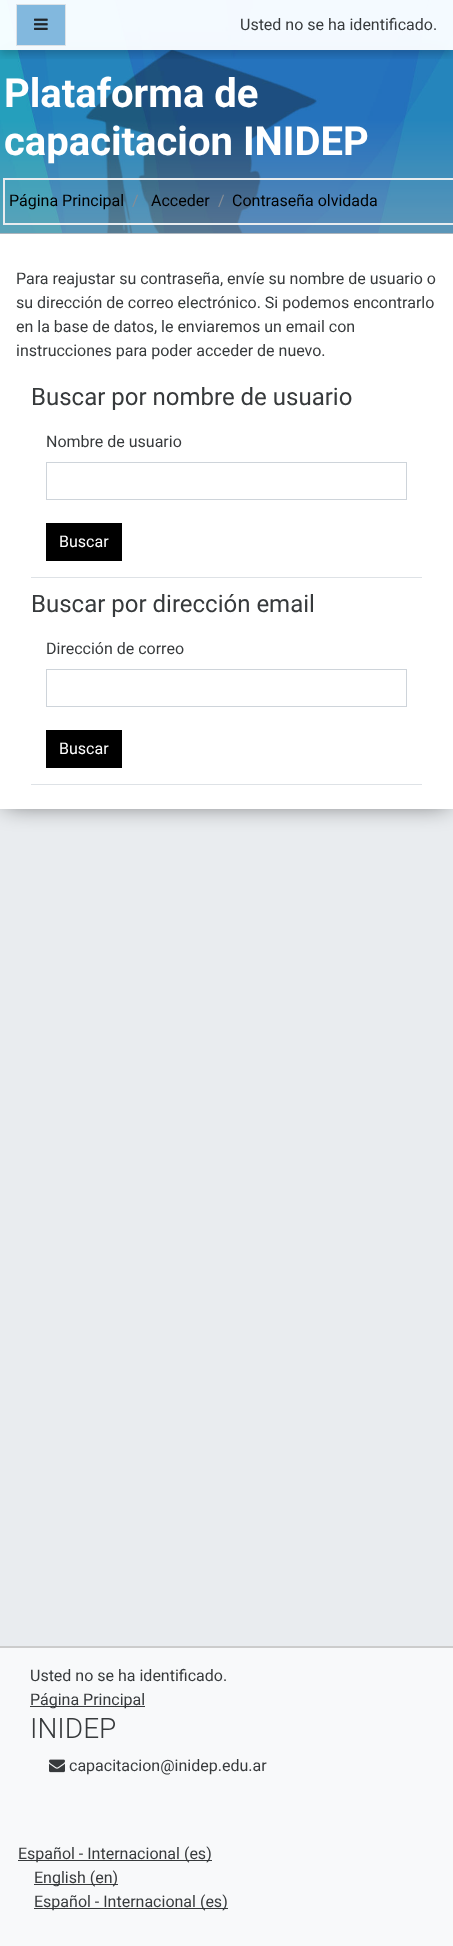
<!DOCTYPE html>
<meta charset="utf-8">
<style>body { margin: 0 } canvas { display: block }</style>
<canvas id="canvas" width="453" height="1946"></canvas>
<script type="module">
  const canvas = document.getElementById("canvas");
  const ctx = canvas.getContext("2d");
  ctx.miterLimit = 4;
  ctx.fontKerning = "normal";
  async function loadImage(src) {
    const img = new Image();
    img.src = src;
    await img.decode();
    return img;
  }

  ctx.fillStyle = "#e9ecef";
  ctx.fillRect(0, 0, 453, 1946);
  ctx.drawImage(await loadImage("img1.png"), 0, 0, 453, 233);
  ctx.save();
  ctx.beginPath();
  ctx.moveTo(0, 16);
  ctx.lineTo(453, 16);
  ctx.lineTo(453, 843);
  ctx.lineTo(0, 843);
  ctx.closePath();
  ctx.moveTo(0, 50);
  ctx.lineTo(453, 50);
  ctx.lineTo(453, 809);
  ctx.lineTo(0, 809);
  ctx.closePath();
  ctx.clip("evenodd");
  ctx.fillStyle = "rgba(0, 0, 0, 0.6)";
  ctx.filter = "blur(12.5px)";
  ctx.beginPath();
  ctx.rect(5, 55, 443, 749);
  ctx.fill();
  ctx.filter = "none";
  ctx.restore();
  ctx.fillStyle = "rgba(33, 37, 41, 0.3)";
  ctx.fillRect(0, 50, 453, 183);
  ctx.save();
  ctx.beginPath();
  ctx.rect(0, 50, 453, 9);
  ctx.clip();
  ctx.fillStyle = "rgba(0, 0, 0, 0.2)";
  ctx.filter = "blur(4px)";
  ctx.beginPath();
  ctx.rect(0, 4, 453, 50);
  ctx.fill();
  ctx.filter = "none";
  ctx.restore();
  ctx.fillStyle = "rgba(255, 255, 255, 0.95)";
  ctx.fillRect(0, 0, 453, 50);
  ctx.fillStyle = "#82b8de";
  ctx.beginPath();
  ctx.rect(16.5, 4.5, 49, 41);
  ctx.fill();
  ctx.strokeStyle = "#dee2e6";
  ctx.stroke();
  ctx.drawImage(await loadImage("img2.png"), 34, 18, 14, 12);
  ctx.font = "16px Roboto";
  ctx.fillStyle = "#373a3c";
  ctx.fillText("Usted no se ha identificado.", 240, 30);
  ctx.fillStyle = "#adb5bd";
  ctx.fillRect(0, 233, 453, 1);
  ctx.font = "bold 40px Roboto";
  ctx.fillStyle = "#ffffff";
  ctx.fillText("Plataforma de", 4, 107);
  ctx.fillText("capacitacion INIDEP", 4, 155);
  ctx.strokeStyle = "#e9ecef";
  ctx.lineWidth = 2;
  ctx.strokeRect(4, 179, 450, 45);
  ctx.font = "16px Roboto";
  ctx.fillStyle = "#000000";
  ctx.fillText("Página Principal", 9, 206);
  ctx.fillStyle = "#868e96";
  ctx.fillText("/", 132, 206);
  ctx.fillStyle = "#000000";
  ctx.fillText("Acceder", 151, 206);
  ctx.fillStyle = "#868e96";
  ctx.fillText("/", 218, 206);
  ctx.fillStyle = "#000000";
  ctx.fillText("Contraseña olvidada", 232, 206);
  ctx.fillStyle = "#ffffff";
  ctx.fillRect(0, 234, 453, 575);
  ctx.fillStyle = "#373a3c";
  ctx.fillText("Para reajustar su contraseña, envíe su nombre de usuario o", 16, 284);
  ctx.fillText("su dirección de correo electrónico. Si podemos encontrarlo", 16, 308);
  ctx.fillText("en la base de datos, le enviaremos un email con", 16, 332);
  ctx.fillText("instrucciones para poder acceder de nuevo.", 16, 356);
  ctx.fillStyle = "#dee2e6";
  ctx.fillRect(31, 577, 391, 1);
  ctx.font = "24px Roboto";
  ctx.fillStyle = "#373a3c";
  ctx.fillText("Buscar por nombre de usuario", 31, 405);
  ctx.font = "16px Roboto";
  ctx.fillText("Nombre de usuario", 46, 447);
  ctx.strokeStyle = "#ced4da";
  ctx.lineWidth = 1;
  ctx.strokeRect(46.5, 462.5, 360, 37);
  ctx.fillStyle = "#000000";
  ctx.fillRect(46, 523, 76, 38);
  ctx.fillStyle = "#ffffff";
  ctx.fillText("Buscar", 59, 547);
  ctx.fillStyle = "#dee2e6";
  ctx.fillRect(31, 784, 391, 1);
  ctx.font = "24px Roboto";
  ctx.fillStyle = "#373a3c";
  ctx.fillText("Buscar por dirección email", 31, 612);
  ctx.font = "16px Roboto";
  ctx.fillText("Dirección de correo", 46, 654);
  ctx.strokeRect(46.5, 669.5, 360, 37);
  ctx.fillStyle = "#000000";
  ctx.fillRect(46, 730, 76, 38);
  ctx.fillStyle = "#ffffff";
  ctx.fillText("Buscar", 59, 754);
  ctx.fillStyle = "#f8f9fa";
  ctx.fillRect(0, 1648, 453, 298);
  ctx.fillStyle = "#cccccc";
  ctx.fillRect(0, 1646, 453, 2);
  ctx.fillStyle = "#373a3c";
  ctx.fillText("Usted no se ha identificado.", 30, 1681);
  ctx.fillRect(30, 1706, 115, 1);
  ctx.fillText("Página Principal", 30, 1705);
  ctx.font = "300 28px Roboto";
  ctx.fillText("INIDEP", 30, 1738);
  ctx.drawImage(await loadImage("img3.png"), 49, 1759, 16, 14);
  ctx.font = "16px Roboto";
  ctx.fillText("capacitacion@inidep.edu.ar", 69, 1771);
  ctx.fillRect(18, 1860, 194, 1);
  ctx.fillText("Español - Internacional (es)", 18, 1859);
  ctx.fillRect(34, 1884, 84, 1);
  ctx.fillText("English (en)", 34, 1883);
  ctx.fillRect(34, 1908, 194, 1);
  ctx.fillText("Español - Internacional (es)", 34, 1907);
</script>
